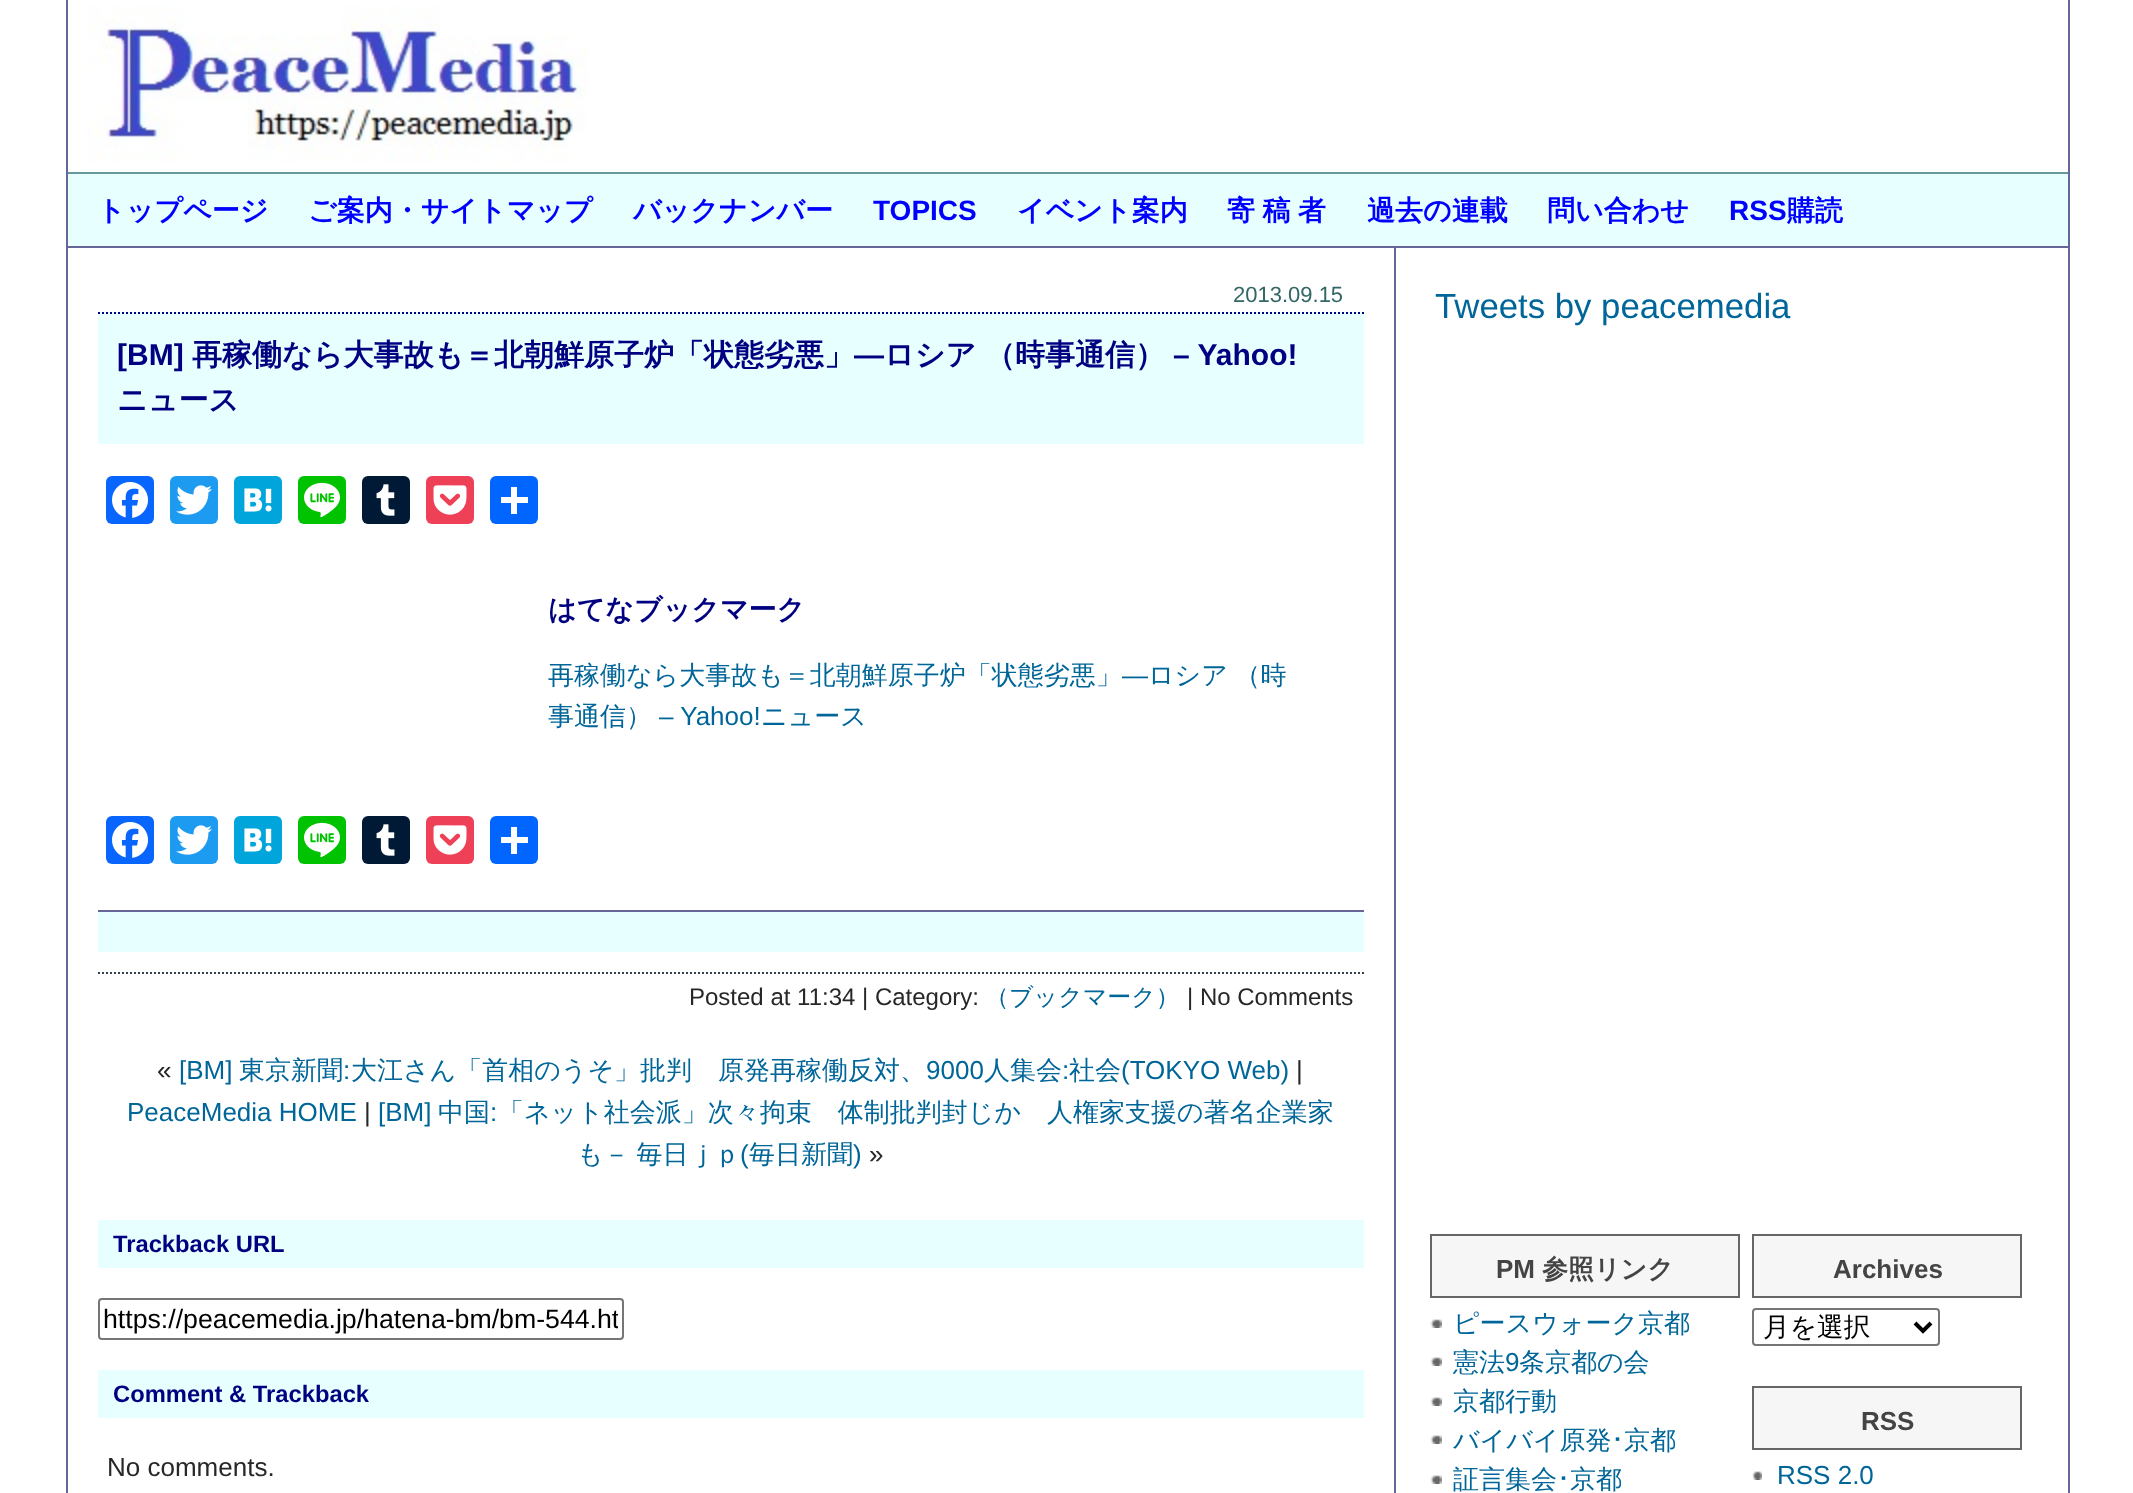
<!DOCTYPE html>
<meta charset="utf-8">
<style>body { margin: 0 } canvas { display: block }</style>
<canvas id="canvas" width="2133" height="1493"></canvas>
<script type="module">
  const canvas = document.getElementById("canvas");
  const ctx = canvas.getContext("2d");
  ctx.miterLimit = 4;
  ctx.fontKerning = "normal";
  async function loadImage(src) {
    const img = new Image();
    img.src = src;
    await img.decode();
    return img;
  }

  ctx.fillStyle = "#ffffff";
  ctx.fillRect(0, 0, 2133, 1493);
  ctx.fillStyle = "#666699";
  ctx.fillRect(2068, 0, 2, 1493);
  ctx.fillRect(66, 0, 2, 1493);
  ctx.drawImage(await loadImage("img1.png"), 88, 4, 500, 160);
  ctx.fillStyle = "#e8ffff";
  ctx.fillRect(68, 174, 2000, 72);
  ctx.fillStyle = "#669999";
  ctx.fillRect(68, 172, 2000, 2);
  ctx.fillStyle = "#666699";
  ctx.fillRect(68, 246, 2000, 2);
  ctx.font = "bold 28px WenQuanYi Zen Hei";
  ctx.fillStyle = "#0000ff";
  ctx.fillText("トップページ", 97, 220);
  ctx.fillText("ご案内・サイトマップ", 308, 220);
  ctx.fillText("バックナンバー", 633, 220);
  ctx.font = "bold 28px Liberation Sans";
  ctx.fillText("TOPICS", 873, 220);
  ctx.font = "bold 28px WenQuanYi Zen Hei";
  ctx.fillText("イベント案内", 1017, 220);
  ctx.wordSpacing = "-1px";
  ctx.fillText("寄 稿 者", 1227, 220);
  ctx.wordSpacing = "0px";
  ctx.fillText("過去の連載", 1367, 220);
  ctx.fillText("問い合わせ", 1547, 220);
  ctx.font = "bold 28px Liberation Sans";
  ctx.fillText("RSS", 1729, 220);
  ctx.font = "bold 28px WenQuanYi Zen Hei";
  ctx.fillText("購読", 1787, 220);
  ctx.fillStyle = "#666699";
  ctx.fillRect(1394, 248, 2, 1245);
  ctx.font = "22px Liberation Sans";
  ctx.fillStyle = "#336666";
  ctx.fillText("2013.09.15", 1233, 302);
  ctx.fillStyle = "#e8ffff";
  ctx.fillRect(98, 312, 1266, 132);
  ctx.beginPath();
  ctx.moveTo(98, 313);
  ctx.lineTo(1364, 313);
  ctx.strokeStyle = "#000080";
  ctx.lineWidth = 2;
  ctx.setLineDash([2, 2]);
  ctx.stroke();
  ctx.font = "bold 30px Liberation Sans";
  ctx.fillStyle = "#000080";
  ctx.fillText("[BM]", 117, 365);
  ctx.font = "bold 30px WenQuanYi Zen Hei";
  ctx.fillText("再稼働なら大事故も＝北朝鮮原子炉「状態劣悪」", 192, 365);
  ctx.font = "bold 30px Liberation Sans";
  ctx.fillText("―", 854, 365);
  ctx.font = "bold 30px WenQuanYi Zen Hei";
  ctx.fillText("ロシア", 884, 365);
  ctx.fillText("（時事通信）", 985, 365);
  ctx.font = "bold 30px Liberation Sans";
  ctx.fillText("– Yahoo!", 1173, 365);
  ctx.font = "bold 30px WenQuanYi Zen Hei";
  ctx.fillText("ニュース", 117, 410);
  ctx.fillStyle = "#0866ff";
  ctx.beginPath();
  ctx.roundRect(106, 476, 48, 48, 6);
  ctx.fill();
  ctx.drawImage(await loadImage("img2.png"), 112, 482, 36, 36);
  ctx.fillStyle = "#1d9bf0";
  ctx.beginPath();
  ctx.roundRect(170, 476, 48, 48, 6);
  ctx.fill();
  ctx.drawImage(await loadImage("img3.png"), 176, 485, 36, 30);
  ctx.fillStyle = "#00a6db";
  ctx.beginPath();
  ctx.roundRect(234, 476, 48, 48, 6);
  ctx.fill();
  ctx.drawImage(await loadImage("img4.png"), 244, 488, 28, 24);
  ctx.fillStyle = "#00c300";
  ctx.beginPath();
  ctx.roundRect(298, 476, 48, 48, 6);
  ctx.fill();
  ctx.drawImage(await loadImage("img5.png"), 304, 482, 36, 36);
  ctx.fillStyle = "#001935";
  ctx.beginPath();
  ctx.roundRect(362, 476, 48, 48, 6);
  ctx.fill();
  ctx.drawImage(await loadImage("img6.png"), 376, 484, 19, 32);
  ctx.fillStyle = "#ee4056";
  ctx.beginPath();
  ctx.roundRect(426, 476, 48, 48, 6);
  ctx.fill();
  ctx.drawImage(await loadImage("img7.png"), 433, 485, 34, 30);
  ctx.fillStyle = "#0166ff";
  ctx.beginPath();
  ctx.roundRect(490, 476, 48, 48, 6);
  ctx.fill();
  ctx.fillStyle = "#ffffff";
  ctx.fillRect(511, 487, 6, 27);
  ctx.fillRect(501, 497, 27, 6);
  ctx.font = "bold 28px WenQuanYi Zen Hei";
  ctx.fillStyle = "#000080";
  ctx.fillText("はてなブックマーク", 548, 619);
  ctx.font = "500 26px WenQuanYi Zen Hei";
  ctx.fillStyle = "#006699";
  ctx.fillText("再稼働なら大事故も＝北朝鮮原子炉「状態劣悪」", 548, 684);
  ctx.font = "26px Liberation Sans";
  ctx.fillText("―", 1122, 684);
  ctx.wordSpacing = "-1px";
  ctx.font = "500 26px WenQuanYi Zen Hei";
  ctx.fillText("ロシア （時", 1148, 684);
  ctx.wordSpacing = "0px";
  ctx.fillText("事通信）", 548, 725);
  ctx.font = "26px Liberation Sans";
  ctx.fillText("– Yahoo!", 659, 725);
  ctx.font = "500 26px WenQuanYi Zen Hei";
  ctx.fillText("ニュース", 761, 725);
  ctx.fillStyle = "#0866ff";
  ctx.beginPath();
  ctx.roundRect(106, 816, 48, 48, 6);
  ctx.fill();
  ctx.drawImage(await loadImage("img2.png"), 112, 822, 36, 36);
  ctx.fillStyle = "#1d9bf0";
  ctx.beginPath();
  ctx.roundRect(170, 816, 48, 48, 6);
  ctx.fill();
  ctx.drawImage(await loadImage("img3.png"), 176, 825, 36, 30);
  ctx.fillStyle = "#00a6db";
  ctx.beginPath();
  ctx.roundRect(234, 816, 48, 48, 6);
  ctx.fill();
  ctx.drawImage(await loadImage("img4.png"), 244, 828, 28, 24);
  ctx.fillStyle = "#00c300";
  ctx.beginPath();
  ctx.roundRect(298, 816, 48, 48, 6);
  ctx.fill();
  ctx.drawImage(await loadImage("img5.png"), 304, 822, 36, 36);
  ctx.fillStyle = "#001935";
  ctx.beginPath();
  ctx.roundRect(362, 816, 48, 48, 6);
  ctx.fill();
  ctx.drawImage(await loadImage("img6.png"), 376, 824, 19, 32);
  ctx.fillStyle = "#ee4056";
  ctx.beginPath();
  ctx.roundRect(426, 816, 48, 48, 6);
  ctx.fill();
  ctx.drawImage(await loadImage("img7.png"), 433, 825, 34, 30);
  ctx.fillStyle = "#0166ff";
  ctx.beginPath();
  ctx.roundRect(490, 816, 48, 48, 6);
  ctx.fill();
  ctx.fillStyle = "#ffffff";
  ctx.fillRect(511, 827, 6, 27);
  ctx.fillRect(501, 837, 27, 6);
  ctx.fillStyle = "#e8ffff";
  ctx.fillRect(98, 912, 1266, 40);
  ctx.fillStyle = "#666699";
  ctx.fillRect(98, 910, 1266, 2);
  ctx.beginPath();
  ctx.moveTo(98, 973);
  ctx.lineTo(1364, 973);
  ctx.strokeStyle = "#36414d";
  ctx.stroke();
  ctx.font = "24px Liberation Sans";
  ctx.fillStyle = "#272727";
  ctx.fillText("Posted at 11:34 | Category:", 689, 1005);
  ctx.font = "500 24px WenQuanYi Zen Hei";
  ctx.fillStyle = "#006699";
  ctx.fillText("（ブックマーク）", 985, 1005);
  ctx.font = "24px Liberation Sans";
  ctx.fillStyle = "#272727";
  ctx.fillText("| No Comments", 1187, 1005);
  ctx.font = "26px Liberation Sans";
  ctx.fillText("«", 157, 1079);
  ctx.fillStyle = "#006699";
  ctx.fillText("[BM]", 179, 1079);
  ctx.font = "500 26px WenQuanYi Zen Hei";
  ctx.fillText("東京新聞", 239, 1079);
  ctx.font = "26px Liberation Sans";
  ctx.fillText(":", 343, 1079);
  ctx.font = "500 26px WenQuanYi Zen Hei";
  ctx.fillText("大江さん「首相のうそ」批判　原発再稼働反対、", 351, 1079);
  ctx.font = "26px Liberation Sans";
  ctx.fillText("9000", 926, 1079);
  ctx.font = "500 26px WenQuanYi Zen Hei";
  ctx.fillText("人集会", 984, 1079);
  ctx.font = "26px Liberation Sans";
  ctx.fillText(":", 1062, 1079);
  ctx.font = "500 26px WenQuanYi Zen Hei";
  ctx.fillText("社会", 1069, 1079);
  ctx.font = "26px Liberation Sans";
  ctx.fillText("(TOKYO Web)", 1121, 1079);
  ctx.fillStyle = "#272727";
  ctx.fillText("|", 1296, 1079);
  ctx.fillStyle = "#006699";
  ctx.fillText("PeaceMedia HOME", 127, 1121);
  ctx.fillStyle = "#272727";
  ctx.fillText("|", 364, 1121);
  ctx.fillStyle = "#006699";
  ctx.fillText("[BM]", 378, 1121);
  ctx.font = "500 26px WenQuanYi Zen Hei";
  ctx.fillText("中国", 438, 1121);
  ctx.font = "26px Liberation Sans";
  ctx.fillText(":", 490, 1121);
  ctx.font = "500 26px WenQuanYi Zen Hei";
  ctx.fillText("「ネット社会派」次々拘束　体制批判封じか　人権家支援の著名企業家", 498, 1121);
  ctx.wordSpacing = "-1px";
  ctx.fillText("も－ 毎日ｊｐ", 577, 1163);
  ctx.wordSpacing = "0px";
  ctx.font = "26px Liberation Sans";
  ctx.fillText("(", 740, 1163);
  ctx.font = "500 26px WenQuanYi Zen Hei";
  ctx.fillText("毎日新聞", 749, 1163);
  ctx.font = "26px Liberation Sans";
  ctx.fillText(")", 853, 1163);
  ctx.fillStyle = "#272727";
  ctx.fillText("»", 869, 1163);
  ctx.fillStyle = "#e8ffff";
  ctx.fillRect(98, 1220, 1266, 48);
  ctx.font = "bold 23.75px Liberation Sans";
  ctx.fillStyle = "#000080";
  ctx.fillText("Trackback URL", 113, 1252);
  ctx.beginPath();
  ctx.roundRect(99, 1299, 524, 40, 3);
  ctx.strokeStyle = "#767676";
  ctx.setLineDash([]);
  ctx.stroke();
  ctx.save();
  ctx.beginPath();
  ctx.rect(104, 1304, 514, 30);
  ctx.clip();
  ctx.font = "26.7px Liberation Sans";
  ctx.fillStyle = "#000000";
  ctx.fillText("https://peacemedia.jp/hatena-bm/bm-544.ht", 103, 1328);
  ctx.restore();
  ctx.fillStyle = "#e8ffff";
  ctx.fillRect(98, 1370, 1266, 48);
  ctx.fillStyle = "#000080";
  ctx.fillText("Comment & Trackback", 113, 1402);
  ctx.font = "26px Liberation Sans";
  ctx.fillStyle = "#272727";
  ctx.fillText("No comments.", 107, 1476);
  ctx.font = "34.75px Liberation Sans";
  ctx.fillStyle = "#006699";
  ctx.fillText("Tweets by peacemedia", 1435, 318);
  ctx.fillStyle = "#f6f6f6";
  ctx.beginPath();
  ctx.rect(1431, 1235, 308, 62);
  ctx.fill();
  ctx.strokeStyle = "#666666";
  ctx.stroke();
  ctx.font = "bold 26px Liberation Sans";
  ctx.fillStyle = "#444444";
  ctx.fillText("PM", 1496, 1278);
  ctx.font = "bold 26px WenQuanYi Zen Hei";
  ctx.fillText("参照リンク", 1542, 1278);
  ctx.drawImage(await loadImage("img8.png"), 1430, 1319, 12, 9);
  ctx.font = "500 26px WenQuanYi Zen Hei";
  ctx.fillStyle = "#006699";
  ctx.fillText("ピースウォーク京都", 1453, 1332);
  ctx.drawImage(await loadImage("img8.png"), 1430, 1357, 12, 9);
  ctx.fillText("憲法", 1453, 1371);
  ctx.font = "26px Liberation Sans";
  ctx.fillText("9", 1505, 1371);
  ctx.font = "500 26px WenQuanYi Zen Hei";
  ctx.fillText("条京都の会", 1519, 1371);
  ctx.drawImage(await loadImage("img8.png"), 1430, 1397, 12, 9);
  ctx.fillText("京都行動", 1453, 1410);
  ctx.drawImage(await loadImage("img8.png"), 1430, 1435, 12, 9);
  ctx.fillText("バイバイ原発", 1453, 1449);
  ctx.font = "26px IPAPGothic";
  ctx.fillText("･", 1611, 1449);
  ctx.font = "500 26px WenQuanYi Zen Hei";
  ctx.fillText("京都", 1624, 1449);
  ctx.drawImage(await loadImage("img8.png"), 1430, 1475, 12, 9);
  ctx.fillText("証言集会", 1453, 1488);
  ctx.font = "26px IPAPGothic";
  ctx.fillText("･", 1557, 1488);
  ctx.font = "500 26px WenQuanYi Zen Hei";
  ctx.fillText("京都", 1570, 1488);
  ctx.fillStyle = "#f6f6f6";
  ctx.beginPath();
  ctx.rect(1753, 1235, 268, 62);
  ctx.fill();
  ctx.stroke();
  ctx.font = "bold 26px Liberation Sans";
  ctx.fillStyle = "#444444";
  ctx.fillText("Archives", 1833, 1278);
  ctx.beginPath();
  ctx.roundRect(1753, 1309, 186, 36, 3);
  ctx.strokeStyle = "#767676";
  ctx.stroke();
  ctx.beginPath();
  ctx.moveTo(1915, 1323);
  ctx.lineTo(1923, 1331);
  ctx.lineTo(1931, 1323);
  ctx.strokeStyle = "#000000";
  ctx.lineWidth = 4;
  ctx.stroke();
  ctx.font = "500 26.7px WenQuanYi Zen Hei";
  ctx.fillStyle = "#000000";
  ctx.fillText("月を選択", 1763, 1336);
  ctx.fillStyle = "#f6f6f6";
  ctx.beginPath();
  ctx.rect(1753, 1387, 268, 62);
  ctx.fill();
  ctx.strokeStyle = "#666666";
  ctx.lineWidth = 2;
  ctx.stroke();
  ctx.font = "bold 26px Liberation Sans";
  ctx.fillStyle = "#444444";
  ctx.fillText("RSS", 1861, 1430);
  ctx.drawImage(await loadImage("img9.png"), 1752, 1471, 10, 9);
  ctx.font = "26px Liberation Sans";
  ctx.fillStyle = "#006699";
  ctx.fillText("RSS 2.0", 1777, 1484);
</script>
